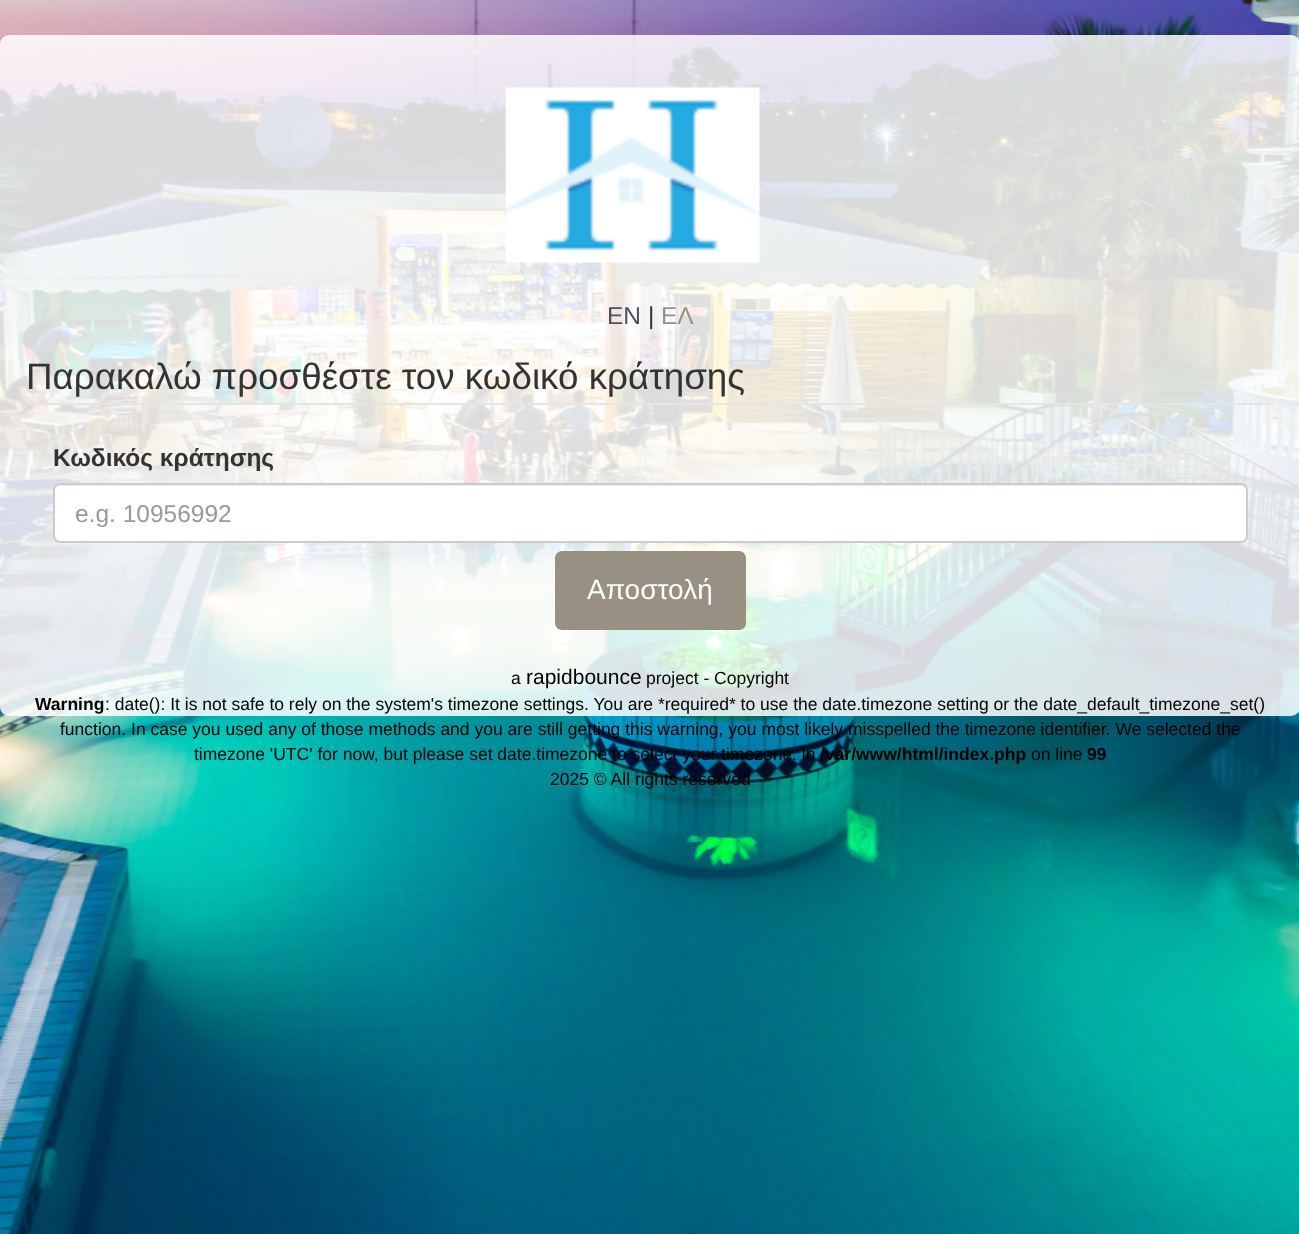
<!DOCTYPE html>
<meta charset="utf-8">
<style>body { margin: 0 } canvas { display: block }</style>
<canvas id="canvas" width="1299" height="1234"></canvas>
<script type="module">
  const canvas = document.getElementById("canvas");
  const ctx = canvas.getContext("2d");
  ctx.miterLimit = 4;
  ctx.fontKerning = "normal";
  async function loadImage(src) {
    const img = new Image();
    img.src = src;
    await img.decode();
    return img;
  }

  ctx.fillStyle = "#ffffff";
  ctx.fillRect(0, 0, 1299, 1234);
  ctx.drawImage(await loadImage("img1.png"), 0, 0, 1299, 1234);
  ctx.fillStyle = "rgba(255, 255, 255, 0.85)";
  ctx.beginPath();
  ctx.roundRect(0, 35, 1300, 681, 9);
  ctx.fill();
  ctx.drawImage(await loadImage("img2.png"), 505, 87, 255, 176);
  ctx.font = "24.5px Liberation Sans";
  ctx.fillStyle = "#4c515a";
  ctx.fillText("EN", 607, 324);
  ctx.fillStyle = "#333333";
  ctx.fillText("|", 648, 324);
  ctx.fillStyle = "#989183";
  ctx.fillText("ΕΛ", 661, 324);
  ctx.fillStyle = "#e5e5e5";
  ctx.fillRect(26, 403, 1248, 2);
  ctx.font = "36.75px Liberation Sans";
  ctx.fillStyle = "#333333";
  ctx.fillText("Παρακαλώ προσθέστε τον κωδικό κράτησης", 26, 389);
  ctx.font = "bold 24.5px Liberation Sans";
  ctx.fillText("Κωδικός κράτησης", 53, 466);
  ctx.fillStyle = "#ffffff";
  ctx.beginPath();
  ctx.roundRect(53, 483, 1195, 60, 7);
  ctx.fill();
  ctx.fillStyle = "#ececec";
  ctx.beginPath();
  ctx.moveTo(60, 486);
  ctx.lineTo(1241, 486);
  ctx.bezierCurveTo(1244, 486, 1246, 489, 1246, 492);
  ctx.lineTo(1246, 490);
  ctx.bezierCurveTo(1246, 487, 1244, 485, 1241, 485);
  ctx.lineTo(59, 485);
  ctx.bezierCurveTo(56, 485, 54, 487, 54, 490);
  ctx.lineTo(54, 492);
  ctx.bezierCurveTo(54, 489, 57, 486, 60, 486);
  ctx.closePath();
  ctx.fill();
  ctx.beginPath();
  ctx.roundRect(54, 484, 1193, 58, 6);
  ctx.strokeStyle = "#cccccc";
  ctx.lineWidth = 2;
  ctx.stroke();
  ctx.font = "24.5px Liberation Sans";
  ctx.fillStyle = "#999999";
  ctx.fillText("e.g. 10956992", 75, 522);
  ctx.fillStyle = "#989183";
  ctx.beginPath();
  ctx.roundRect(556, 552, 189, 77, 6);
  ctx.fill();
  ctx.strokeStyle = "#989183";
  ctx.stroke();
  ctx.font = "28px Liberation Sans";
  ctx.fillStyle = "#ffffff";
  ctx.fillText("Αποστολή", 587, 599);
  ctx.font = "17.5px Liberation Sans";
  ctx.fillStyle = "#000000";
  ctx.fillText("a", 511, 684);
  ctx.font = "21px Liberation Sans";
  ctx.fillText("rapidbounce", 526, 684);
  ctx.font = "17.5px Liberation Sans";
  ctx.fillText("project - Copyright", 646, 684);
  ctx.font = "bold 17.5px Liberation Sans";
  ctx.fillText("Warning", 35, 710);
  ctx.font = "17.5px Liberation Sans";
  ctx.fillText(": date(): It is not safe to rely on the system's timezone settings. You are *required* to use the date.timezone setting or the date_default_timezone_set()", 105, 710);
  ctx.fillText("function. In case you used any of those methods and you are still getting this warning, you most likely misspelled the timezone identifier. We selected the", 60, 735);
  ctx.fillText("timezone 'UTC' for now, but please set date.timezone to select your timezone. in", 194, 760);
  ctx.font = "bold 17.5px Liberation Sans";
  ctx.fillText("/var/www/html/index.php", 820, 760);
  ctx.font = "17.5px Liberation Sans";
  ctx.fillText("on line", 1031, 760);
  ctx.font = "bold 17.5px Liberation Sans";
  ctx.fillText("99", 1087, 760);
  ctx.font = "17.5px Liberation Sans";
  ctx.fillText("2025 © All rights reserved", 550, 785);
</script>
